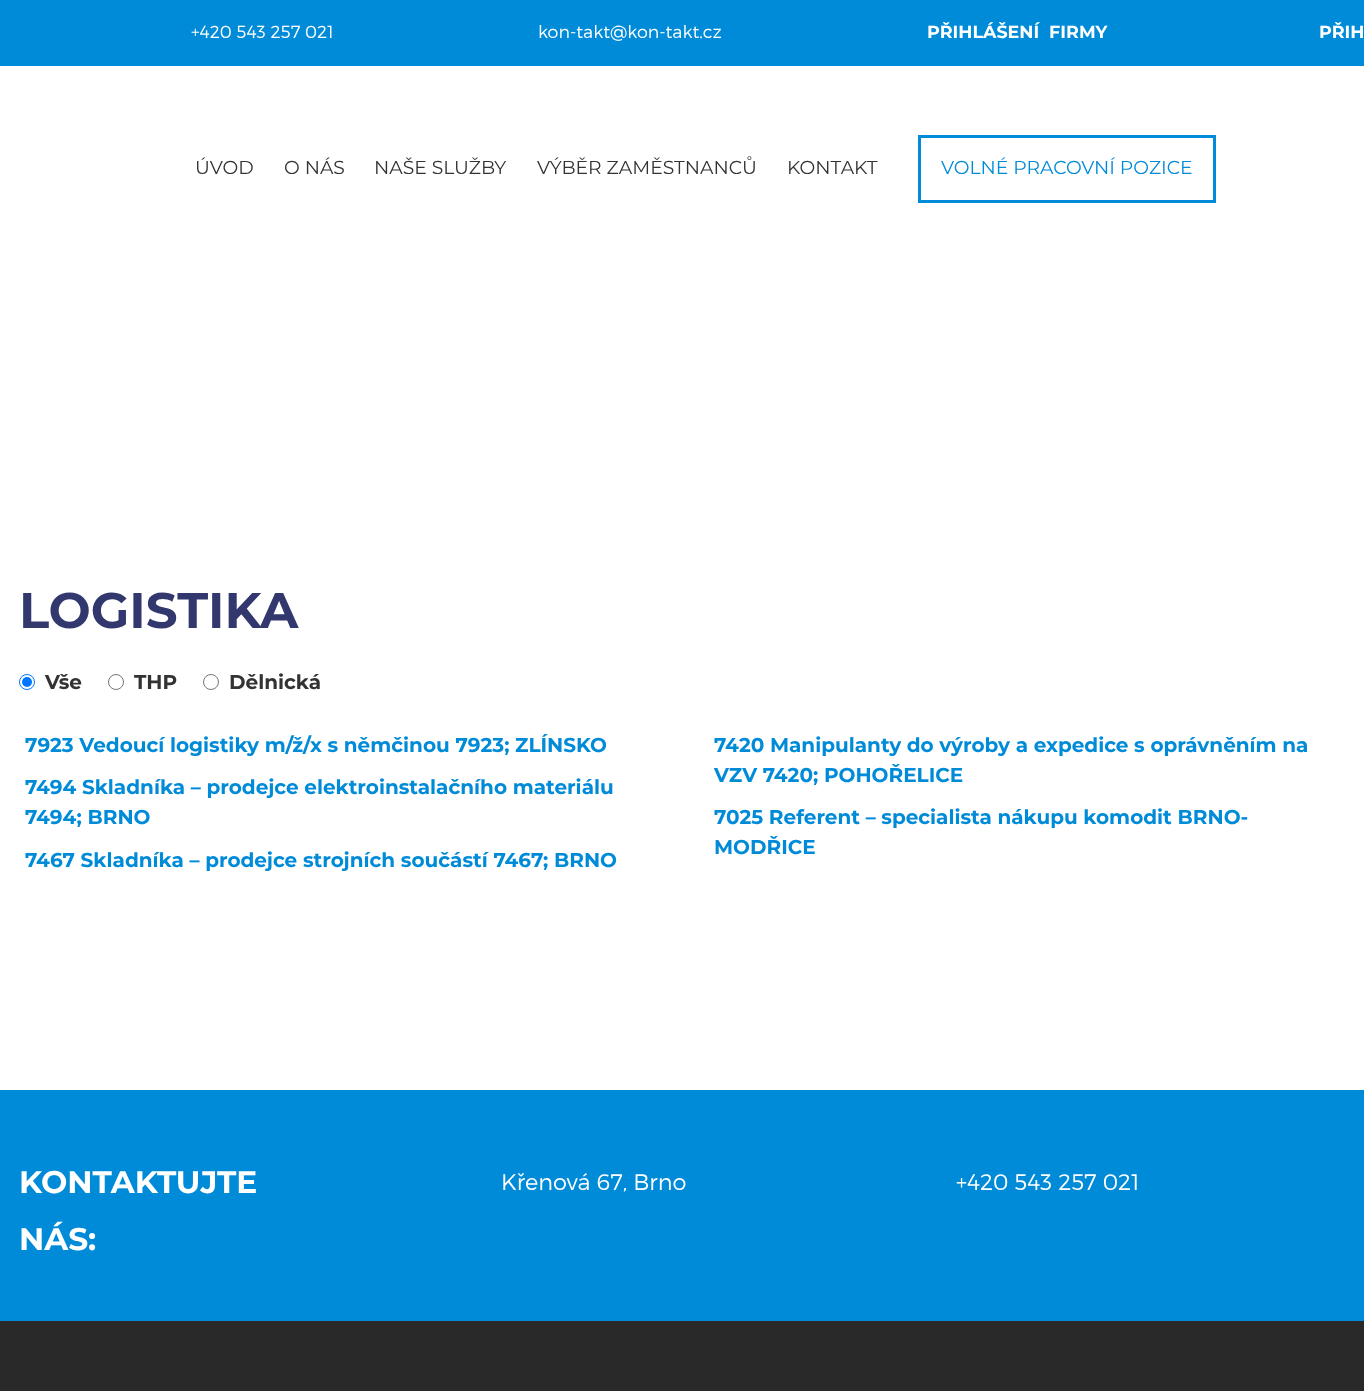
<!DOCTYPE html>
<meta charset="utf-8">
<style>body { margin: 0 } canvas { display: block }</style>
<canvas id="canvas" width="1364" height="1391"></canvas>
<script type="module">
  const canvas = document.getElementById("canvas");
  const ctx = canvas.getContext("2d");
  ctx.miterLimit = 4;
  ctx.fontKerning = "normal";

  ctx.fillStyle = "#ffffff";
  ctx.fillRect(0, 0, 1364, 1391);
  ctx.fillStyle = "#008bd9";
  ctx.fillRect(0, 0, 1364, 66);
  ctx.font = "300 17.5px Montserrat";
  ctx.fillStyle = "#ffffff";
  ctx.fillText("+420 543 257 021", 191, 38);
  ctx.fillText("kon-takt@kon-takt.cz", 538, 38);
  ctx.font = "bold 17.5px Montserrat";
  ctx.fillText("PŘIHLÁŠENÍ  FIRMY", 927, 38);
  ctx.fillText("PŘIH", 1319, 38);
  ctx.font = "18.75px Montserrat";
  ctx.fillStyle = "#333333";
  ctx.fillText("ÚVOD", 195, 174);
  ctx.fillText("O NÁS", 284, 174);
  ctx.fillText("NAŠE SLUŽBY", 374, 174);
  ctx.fillText("VÝBĚR ZAMĚSTNANCŮ", 537, 174);
  ctx.fillText("KONTAKT", 787, 174);
  ctx.strokeStyle = "#008bd9";
  ctx.lineWidth = 3;
  ctx.strokeRect(919.5, 136.5, 295, 65);
  ctx.fillStyle = "#008bd9";
  ctx.fillText("VOLNÉ PRACOVNÍ POZICE", 941, 174);
  ctx.font = "bold 50px Montserrat";
  ctx.fillStyle = "#32376e";
  ctx.fillText("LOGISTIKA", 19, 628);
  ctx.beginPath();
  ctx.arc(27, 682, 7.5, 0, Math.PI * 2);
  ctx.strokeStyle = "#0075ff";
  ctx.lineWidth = 1;
  ctx.stroke();
  ctx.fillStyle = "#0075ff";
  ctx.beginPath();
  ctx.arc(27, 682, 5, 0, Math.PI * 2);
  ctx.fill();
  ctx.font = "bold 20px Montserrat";
  ctx.fillStyle = "#333333";
  ctx.fillText("Vše", 45, 689);
  ctx.beginPath();
  ctx.arc(116, 682, 7.5, 0, Math.PI * 2);
  ctx.strokeStyle = "#767676";
  ctx.stroke();
  ctx.fillText("THP", 134, 689);
  ctx.beginPath();
  ctx.arc(211, 682, 7.5, 0, Math.PI * 2);
  ctx.stroke();
  ctx.fillText("Dělnická", 229, 689);
  ctx.fillStyle = "#008bd9";
  ctx.fillText("7923 Vedoucí logistiky m/ž/x s němčinou 7923; ZLÍNSKO", 25, 752);
  ctx.fillText("7420 Manipulanty do výroby a expedice s oprávněním na", 714, 752);
  ctx.fillText("VZV 7420; POHOŘELICE", 714, 782);
  ctx.fillText("7494 Skladníka – prodejce elektroinstalačního materiálu", 25, 794);
  ctx.fillText("7494; BRNO", 25, 824);
  ctx.fillText("7025 Referent – specialista nákupu komodit BRNO-", 714, 824);
  ctx.fillText("MODŘICE", 714, 854);
  ctx.fillText("7467 Skladníka – prodejce strojních součástí 7467; BRNO", 25, 867);
  ctx.fillRect(0, 1090, 1364, 231);
  ctx.font = "bold 31.25px Montserrat";
  ctx.fillStyle = "#ffffff";
  ctx.fillText("KONTAKTUJTE", 19, 1193);
  ctx.fillText("NÁS:", 19, 1250);
  ctx.font = "300 22.5px Montserrat";
  ctx.fillText("Křenová 67, Brno", 501, 1190);
  ctx.fillText("+420 543 257 021", 956, 1190);
  ctx.fillStyle = "#292929";
  ctx.fillRect(0, 1321, 1364, 70);
</script>
